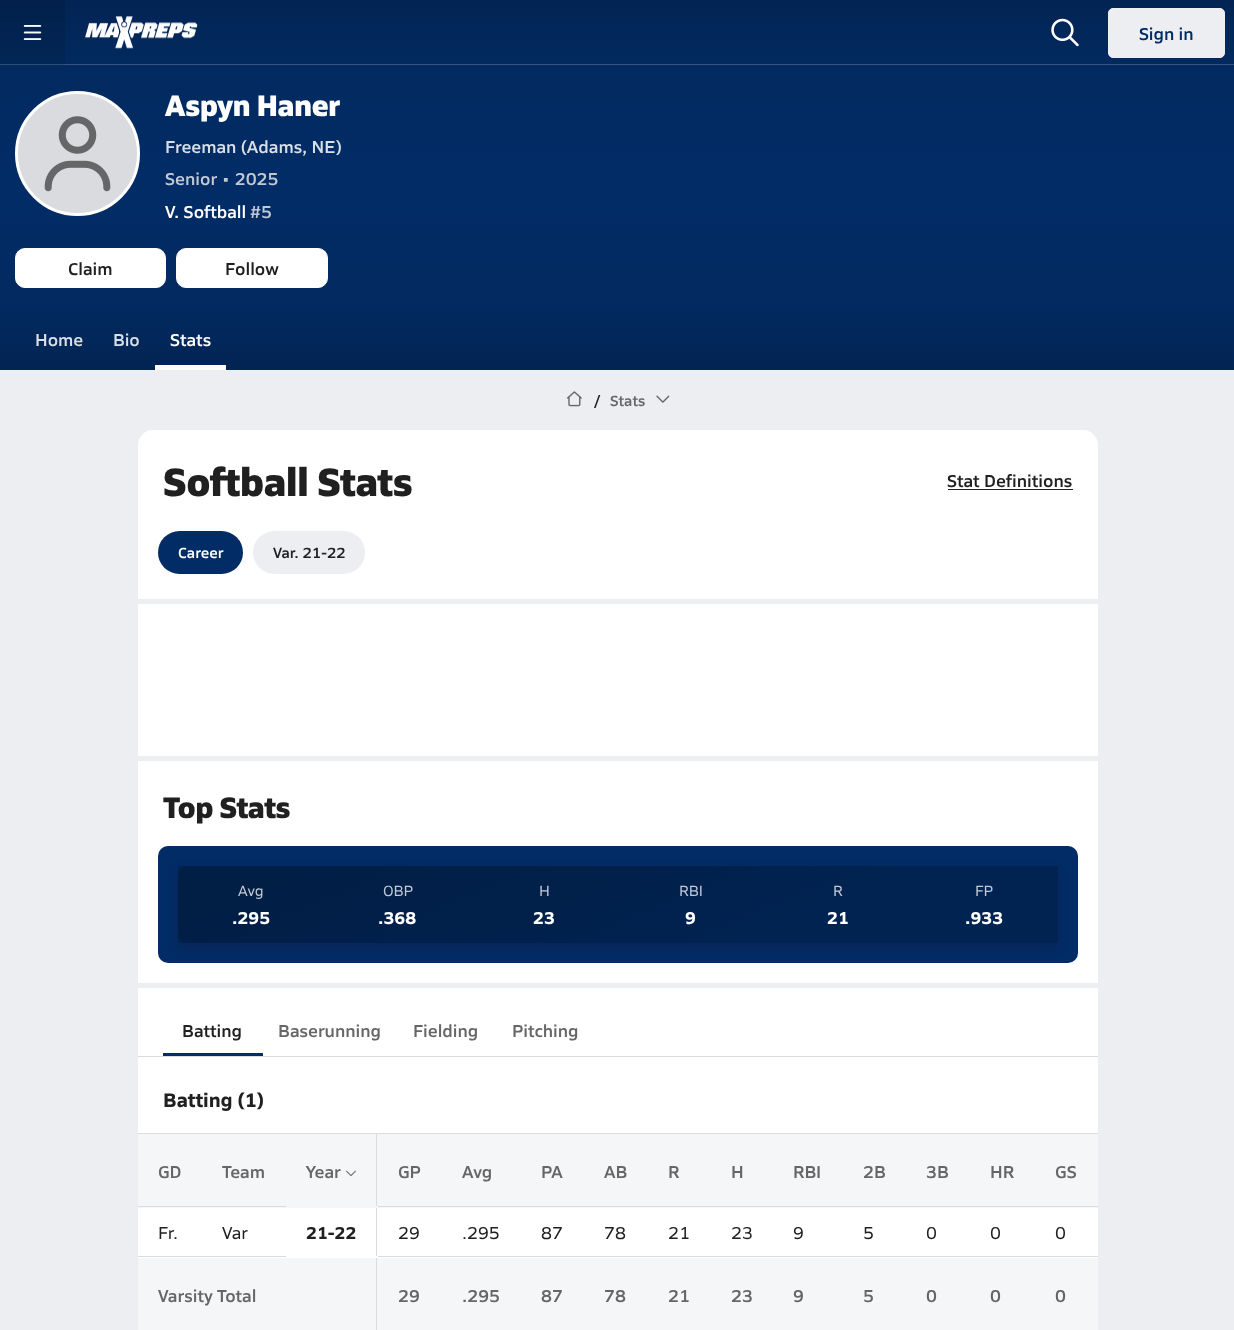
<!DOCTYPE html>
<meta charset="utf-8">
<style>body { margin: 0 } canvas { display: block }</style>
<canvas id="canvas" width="1234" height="1330"></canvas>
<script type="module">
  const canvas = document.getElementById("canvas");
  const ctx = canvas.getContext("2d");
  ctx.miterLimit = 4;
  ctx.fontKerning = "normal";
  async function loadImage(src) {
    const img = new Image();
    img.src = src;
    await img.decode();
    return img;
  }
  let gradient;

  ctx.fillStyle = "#edeef2";
  ctx.fillRect(0, 0, 1234, 1330);
  gradient = ctx.createLinearGradient(618, 0, 618, 65);
  gradient.addColorStop(0, "#022453");
  gradient.addColorStop(1, "#022a60");
  ctx.fillStyle = gradient;
  ctx.fillRect(65, 0, 1169, 64);
  gradient = ctx.createLinearGradient(618, 0, 618, 65);
  gradient.addColorStop(0, "#02204b");
  gradient.addColorStop(1, "#022656");
  ctx.fillStyle = gradient;
  ctx.fillRect(0, 0, 65, 64);
  ctx.drawImage(await loadImage("img1.png"), 23, 25, 19, 15);
  ctx.drawImage(await loadImage("img2.png"), 85, 16, 113, 33);
  ctx.drawImage(await loadImage("img3.png"), 1051, 18, 28, 29);
  ctx.fillStyle = "#edeef2";
  ctx.beginPath();
  ctx.roundRect(1108.5, 8.5, 116, 49, 4.5);
  ctx.fill();
  ctx.strokeStyle = "#edeef2";
  ctx.stroke();
  ctx.font = "600 17.5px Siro";
  ctx.fillStyle = "#022c66";
  ctx.fillText("Sign in", 1139, 40);
  ctx.fillStyle = "#355580";
  ctx.fillRect(65, 64, 1169, 1);
  ctx.fillStyle = "#304d73";
  ctx.fillRect(0, 64, 65, 1);
  gradient = ctx.createLinearGradient(618, 65, 618, 308);
  gradient.addColorStop(0, "#022a60");
  gradient.addColorStop(0.43, "#022c66");
  gradient.addColorStop(0.57, "#022c66");
  gradient.addColorStop(1, "#022a60");
  ctx.fillStyle = gradient;
  ctx.fillRect(0, 65, 1234, 243);
  ctx.fillStyle = "#d9dbde";
  ctx.beginPath();
  ctx.arc(77.5, 153.5, 61, 0, Math.PI * 2);
  ctx.fill();
  ctx.strokeStyle = "#ffffff";
  ctx.lineWidth = 3;
  ctx.stroke();
  ctx.drawImage(await loadImage("img4.png"), 44, 116, 67, 76);
  ctx.letterSpacing = "-0.6px";
  ctx.font = "800 30px Siro";
  ctx.fillStyle = "#ffffff";
  ctx.fillText("Aspyn Haner", 165, 116);
  ctx.letterSpacing = "0px";
  ctx.font = "600 17.5px Siro";
  ctx.fillStyle = "#d9dfe6";
  ctx.fillText("Freeman (Adams, NE)", 165, 153);
  ctx.fillStyle = "#c0c8d4";
  ctx.fillText("Senior • 2025", 165, 185);
  ctx.fillStyle = "#ffffff";
  ctx.fillText("V. Softball", 165, 218);
  ctx.fillStyle = "#c0c8d4";
  ctx.fillText("#5", 250, 218);
  ctx.fillStyle = "#ffffff";
  ctx.beginPath();
  ctx.roundRect(15.5, 248.5, 150, 39, 9.5);
  ctx.fill();
  ctx.lineWidth = 1;
  ctx.stroke();
  ctx.fillStyle = "#212021";
  ctx.fillText("Claim", 68, 275);
  ctx.fillStyle = "#ffffff";
  ctx.beginPath();
  ctx.roundRect(176.5, 248.5, 151, 39, 9.5);
  ctx.fill();
  ctx.stroke();
  ctx.fillStyle = "#212021";
  ctx.fillText("Follow", 225, 275);
  gradient = ctx.createLinearGradient(618, 307, 618, 370);
  gradient.addColorStop(0, "#022a60");
  gradient.addColorStop(1, "#022453");
  ctx.fillStyle = gradient;
  ctx.fillRect(0, 308, 1234, 62);
  ctx.fillStyle = "#d9dfe6";
  ctx.fillText("Home", 35, 346);
  ctx.fillText("Bio", 113, 346);
  ctx.fillStyle = "#ffffff";
  ctx.fillText("Stats", 170, 346);
  ctx.fillRect(155, 365, 71, 5);
  ctx.drawImage(await loadImage("img5.png"), 567, 391, 15, 16);
  ctx.font = "600 15px Siro";
  ctx.fillStyle = "#212021";
  ctx.fillText("/", 594, 406);
  ctx.fillStyle = "#656667";
  ctx.fillText("Stats", 610, 406);
  ctx.drawImage(await loadImage("img6.png"), 656, 395, 14, 8);
  ctx.fillStyle = "#ffffff";
  ctx.beginPath();
  ctx.roundRect(138, 430, 960, 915, 15);
  ctx.fill();
  ctx.letterSpacing = "-0.6px";
  ctx.font = "800 40px Siro";
  ctx.fillStyle = "#212021";
  ctx.fillText("Softball Stats", 163, 496);
  ctx.letterSpacing = "0px";
  ctx.font = "600 17.5px Siro";
  ctx.fillText("Stat Definitions", 947, 487);
  ctx.fillRect(948, 489, 125, 1);
  ctx.fillStyle = "#edeef2";
  ctx.fillRect(138, 599, 960, 5);
  ctx.fillStyle = "#022c66";
  ctx.beginPath();
  ctx.roundRect(158, 531, 85, 43, 21.5);
  ctx.fill();
  ctx.font = "600 15px Siro";
  ctx.fillStyle = "#ffffff";
  ctx.fillText("Career", 178, 558);
  ctx.fillStyle = "#edeef2";
  ctx.beginPath();
  ctx.roundRect(253, 531, 112, 43, 21.5);
  ctx.fill();
  ctx.fillStyle = "#212021";
  ctx.fillText("Var. 21-22", 273, 558);
  ctx.fillStyle = "#edeef2";
  ctx.fillRect(138, 756, 960, 5);
  ctx.fillRect(138, 983, 960, 5);
  ctx.letterSpacing = "-0.6px";
  ctx.font = "800 30px Siro";
  ctx.fillStyle = "#212021";
  ctx.fillText("Top Stats", 163, 818);
  ctx.fillStyle = "#022c66";
  ctx.beginPath();
  ctx.roundRect(158, 846, 920, 117, 10);
  ctx.fill();
  ctx.save();
  ctx.beginPath();
  ctx.moveTo(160, 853);
  ctx.lineTo(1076, 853);
  ctx.lineTo(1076, 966);
  ctx.lineTo(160, 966);
  ctx.closePath();
  ctx.moveTo(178, 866);
  ctx.lineTo(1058, 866);
  ctx.lineTo(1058, 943);
  ctx.lineTo(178, 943);
  ctx.closePath();
  ctx.clip("evenodd");
  ctx.fillStyle = "rgba(51, 0, 9, 0.15)";
  ctx.filter = "blur(5.5px)";
  ctx.beginPath();
  ctx.rect(178, 871, 880, 77);
  ctx.fill();
  ctx.filter = "none";
  ctx.restore();
  ctx.fillStyle = "rgba(0, 0, 0, 0.2)";
  ctx.fillRect(178, 866, 880, 77);
  gradient = ctx.createLinearGradient(539, 716, 696, 1093);
  gradient.addColorStop(0.14, "rgba(0, 0, 0, 0.15)");
  gradient.addColorStop(0.71, "rgba(0, 0, 0, 0)");
  ctx.fillStyle = gradient;
  ctx.beginPath();
  ctx.roundRect(178, 866, 880, 77, 10);
  ctx.fill();
  ctx.letterSpacing = "0px";
  ctx.font = "15px Siro";
  ctx.fillStyle = "#c0c8d4";
  ctx.fillText("Avg", 238, 896);
  ctx.font = "bold 17.5px Siro";
  ctx.fillStyle = "#ffffff";
  ctx.fillText(".295", 232, 924);
  ctx.font = "15px Siro";
  ctx.fillStyle = "#c0c8d4";
  ctx.fillText("OBP", 383, 896);
  ctx.font = "bold 17.5px Siro";
  ctx.fillStyle = "#ffffff";
  ctx.fillText(".368", 378, 924);
  ctx.font = "15px Siro";
  ctx.fillStyle = "#c0c8d4";
  ctx.fillText("H", 539, 896);
  ctx.font = "bold 17.5px Siro";
  ctx.fillStyle = "#ffffff";
  ctx.fillText("23", 533, 924);
  ctx.font = "15px Siro";
  ctx.fillStyle = "#c0c8d4";
  ctx.fillText("RBI", 679, 896);
  ctx.font = "bold 17.5px Siro";
  ctx.fillStyle = "#ffffff";
  ctx.fillText("9", 685, 924);
  ctx.font = "15px Siro";
  ctx.fillStyle = "#c0c8d4";
  ctx.fillText("R", 833, 896);
  ctx.font = "bold 17.5px Siro";
  ctx.fillStyle = "#ffffff";
  ctx.fillText("21", 827, 924);
  ctx.font = "15px Siro";
  ctx.fillStyle = "#c0c8d4";
  ctx.fillText("FP", 975, 896);
  ctx.font = "bold 17.5px Siro";
  ctx.fillStyle = "#ffffff";
  ctx.fillText(".933", 965, 924);
  ctx.fillStyle = "#d9dbde";
  ctx.fillRect(138, 1056, 960, 1);
  ctx.font = "600 17.5px Siro";
  ctx.fillStyle = "#212021";
  ctx.fillText("Batting", 182, 1037);
  ctx.fillStyle = "#022c66";
  ctx.fillRect(163, 1053, 100, 3);
  ctx.fillStyle = "#656667";
  ctx.fillText("Baserunning", 278, 1037);
  ctx.fillText("Fielding", 413, 1037);
  ctx.fillText("Pitching", 512, 1037);
  ctx.font = "bold 20px Siro";
  ctx.fillStyle = "#212021";
  ctx.fillText("Batting (1)", 163, 1107);
  ctx.fillStyle = "#d9dbde";
  ctx.fillRect(138, 1133, 960, 1);
  ctx.fillStyle = "#f5f6f7";
  ctx.fillRect(138, 1134, 148, 74);
  ctx.fillRect(378, 1134, 720, 74);
  ctx.fillStyle = "#d9dbde";
  ctx.fillRect(138, 1206, 960, 1);
  ctx.font = "600 17.5px Siro";
  ctx.fillStyle = "#656667";
  ctx.fillText("GD", 158, 1178);
  ctx.fillText("Team", 222, 1178);
  ctx.fillStyle = "#f5f6f7";
  ctx.fillRect(286, 1134, 92, 74);
  ctx.fillStyle = "#656667";
  ctx.fillText("Year", 306, 1178);
  ctx.drawImage(await loadImage("img7.png"), 346, 1170, 10, 6);
  ctx.fillStyle = "#d9dbde";
  ctx.fillRect(376, 1134, 1, 72);
  ctx.fillStyle = "#656667";
  ctx.fillText("GP", 398, 1178);
  ctx.fillText("Avg", 462, 1178);
  ctx.fillText("PA", 541, 1178);
  ctx.fillText("AB", 604, 1178);
  ctx.fillText("R", 668, 1178);
  ctx.fillText("H", 731, 1178);
  ctx.fillText("RBI", 793, 1178);
  ctx.fillText("2B", 863, 1178);
  ctx.fillText("3B", 926, 1178);
  ctx.fillText("HR", 990, 1178);
  ctx.fillText("GS", 1055, 1178);
  ctx.font = "17.5px Siro";
  ctx.fillStyle = "#212021";
  ctx.fillText("Fr.", 158, 1239);
  ctx.fillText("Var", 222, 1239);
  ctx.fillStyle = "#d9dbde";
  ctx.fillRect(138, 1256, 960, 1);
  ctx.fillStyle = "#ffffff";
  ctx.fillRect(286, 1256, 92, 1);
  ctx.font = "bold 17.5px Siro";
  ctx.fillStyle = "#212021";
  ctx.fillText("21-22", 306, 1239);
  ctx.fillStyle = "#d9dbde";
  ctx.fillRect(376, 1208, 1, 48);
  ctx.font = "17.5px Siro";
  ctx.fillStyle = "#212021";
  ctx.fillText("29", 398, 1239);
  ctx.fillText(".295", 462, 1239);
  ctx.fillText("87", 541, 1239);
  ctx.fillText("78", 604, 1239);
  ctx.fillText("21", 668, 1239);
  ctx.fillText("23", 731, 1239);
  ctx.fillText("9", 793, 1239);
  ctx.fillText("5", 863, 1239);
  ctx.fillText("0", 926, 1239);
  ctx.fillText("0", 990, 1239);
  ctx.fillText("0", 1055, 1239);
  ctx.fillStyle = "#f5f6f7";
  ctx.fillRect(138, 1258, 148, 72);
  ctx.font = "600 17.5px Siro";
  ctx.fillStyle = "#656667";
  ctx.fillText("Varsity Total", 158, 1302);
  ctx.fillStyle = "#f5f6f7";
  ctx.fillRect(286, 1258, 812, 72);
  ctx.fillStyle = "#d9dbde";
  ctx.fillRect(376, 1258, 1, 72);
  ctx.fillStyle = "#656667";
  ctx.fillText("29", 398, 1302);
  ctx.fillText(".295", 462, 1302);
  ctx.fillText("87", 541, 1302);
  ctx.fillText("78", 604, 1302);
  ctx.fillText("21", 668, 1302);
  ctx.fillText("23", 731, 1302);
  ctx.fillText("9", 793, 1302);
  ctx.fillText("5", 863, 1302);
  ctx.fillText("0", 926, 1302);
  ctx.fillText("0", 990, 1302);
  ctx.fillText("0", 1055, 1302);
</script>
